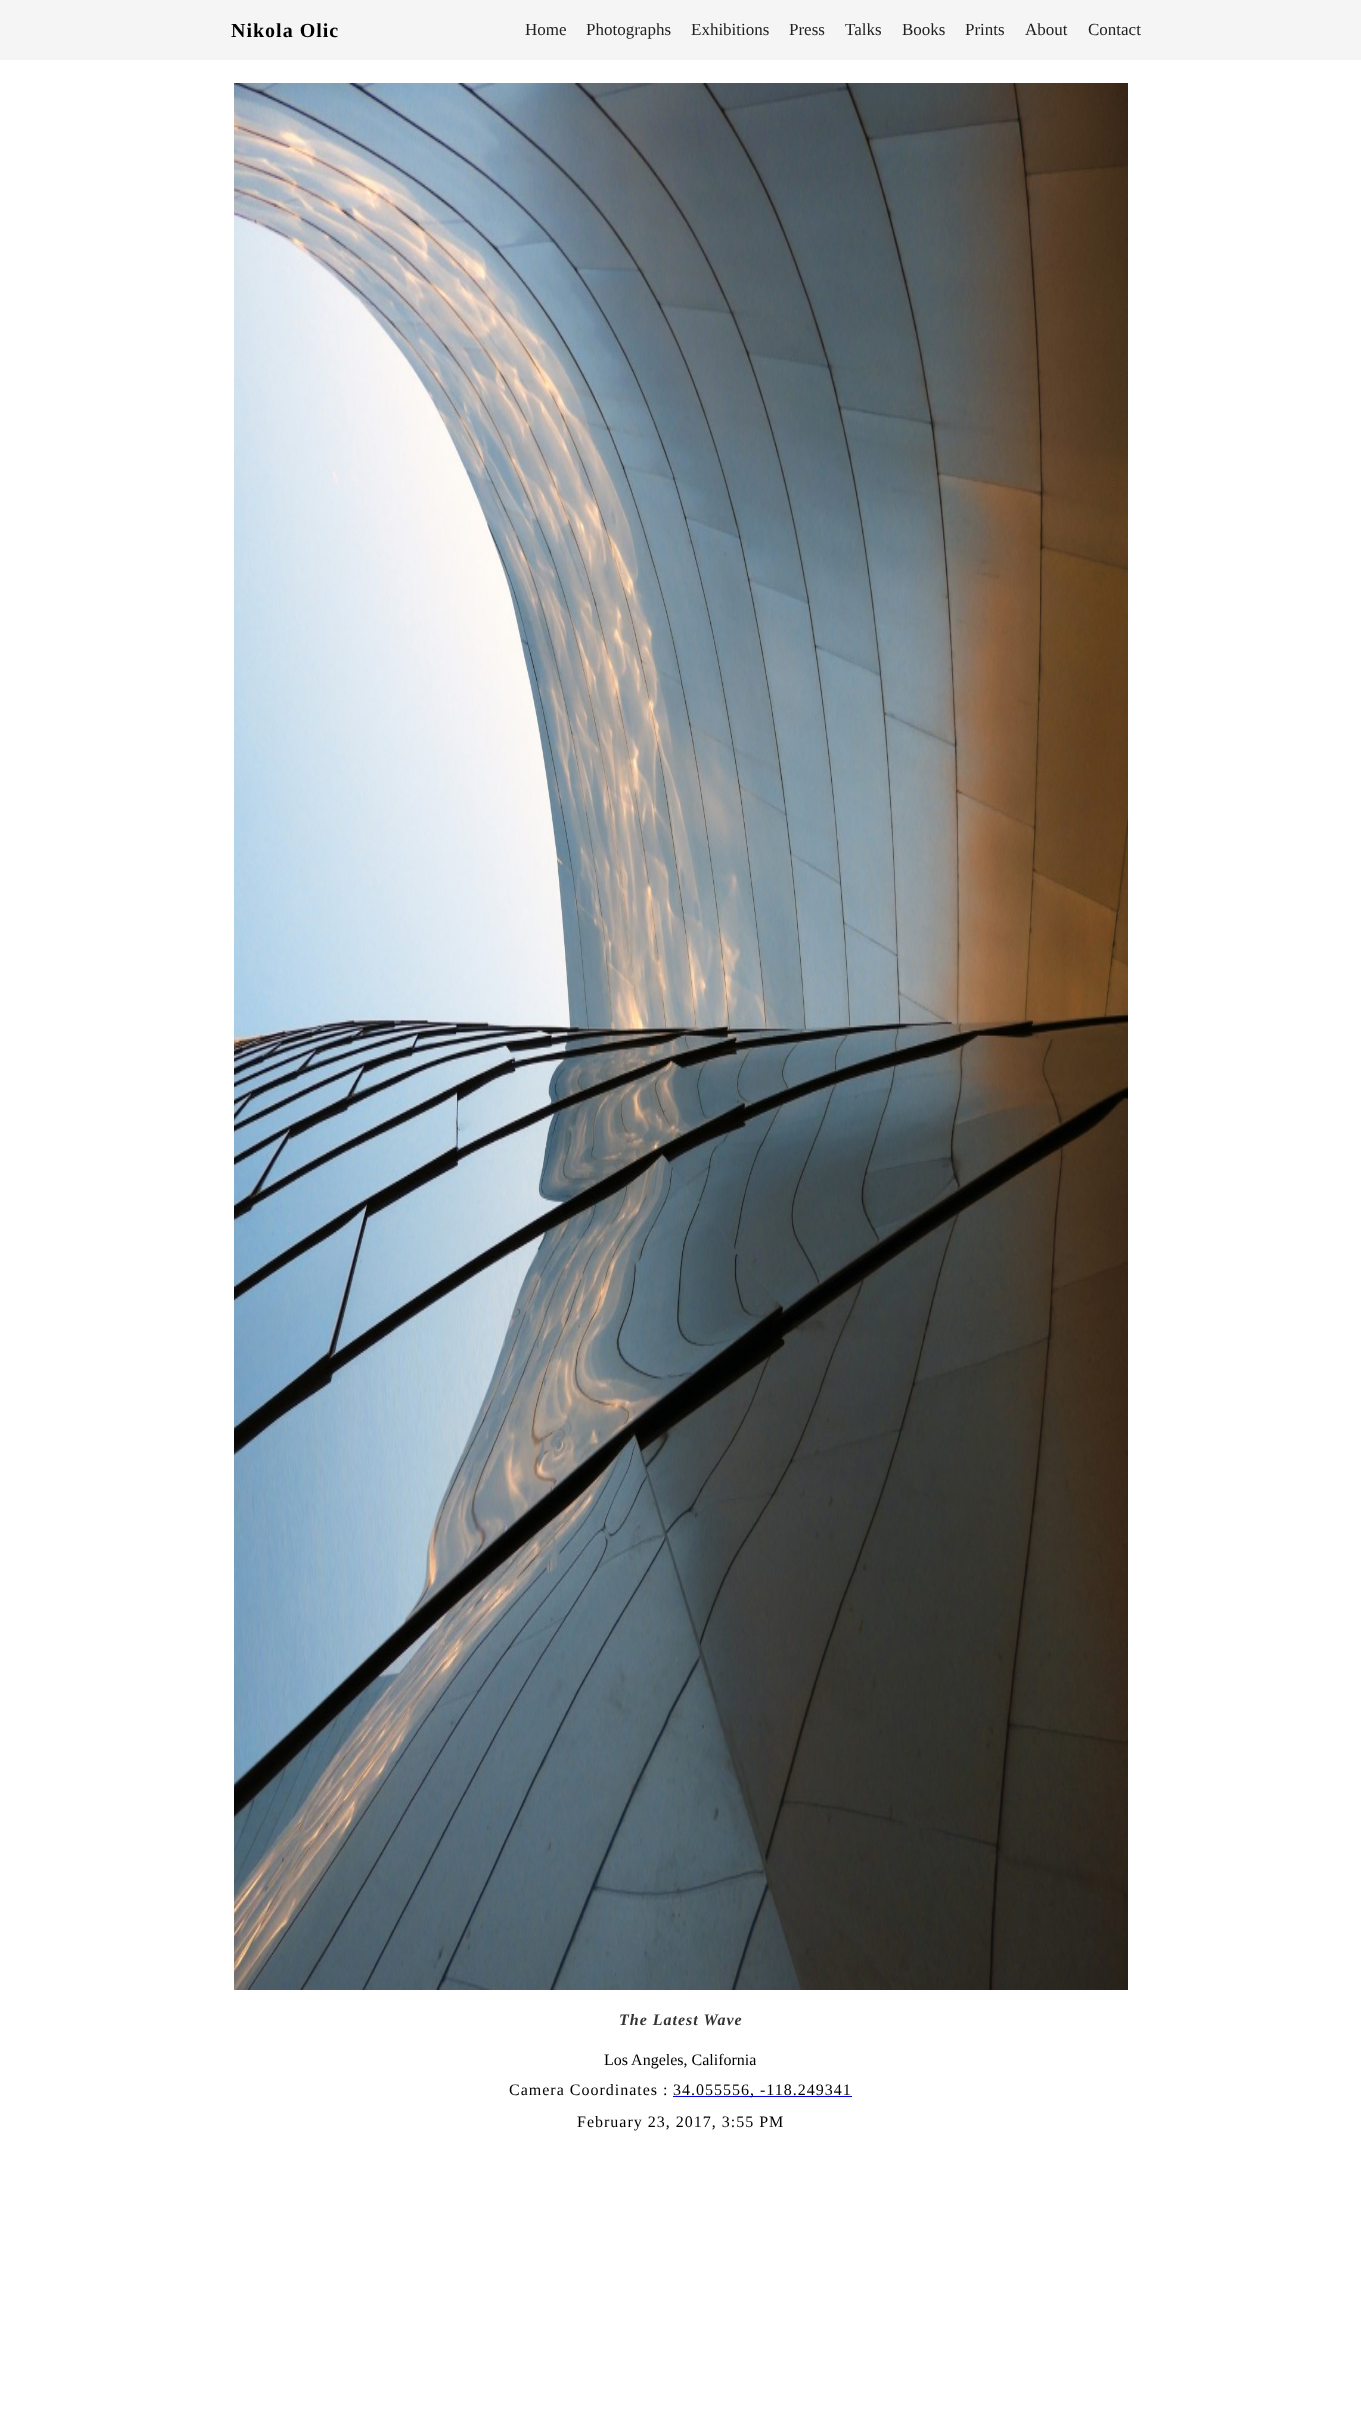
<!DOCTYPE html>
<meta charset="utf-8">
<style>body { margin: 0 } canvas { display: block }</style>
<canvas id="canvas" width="1361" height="2409"></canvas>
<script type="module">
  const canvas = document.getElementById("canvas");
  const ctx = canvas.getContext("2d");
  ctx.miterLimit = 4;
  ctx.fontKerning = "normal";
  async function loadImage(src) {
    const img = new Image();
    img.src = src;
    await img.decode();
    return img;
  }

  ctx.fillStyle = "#ffffff";
  ctx.fillRect(0, 0, 1361, 2409);
  ctx.fillStyle = "#f5f5f5";
  ctx.fillRect(0, 0, 1361, 60);
  ctx.letterSpacing = "1px";
  ctx.font = "bold 20px Liberation Serif";
  ctx.fillStyle = "#000000";
  ctx.fillText("Nikola Olic", 231, 37);
  ctx.letterSpacing = "0px";
  ctx.font = "17px Liberation Serif";
  ctx.fillStyle = "#222222";
  ctx.fillText("Home", 525, 35);
  ctx.fillText("Photographs", 586, 35);
  ctx.fillText("Exhibitions", 691, 35);
  ctx.fillText("Press", 789, 35);
  ctx.fillText("Talks", 845, 35);
  ctx.fillText("Books", 902, 35);
  ctx.fillText("Prints", 965, 35);
  ctx.fillText("About", 1025, 35);
  ctx.fillText("Contact", 1088, 35);
  ctx.drawImage(await loadImage("img1.png"), 234, 83, 894, 1907);
  ctx.letterSpacing = "1px";
  ctx.font = "italic bold 16px Liberation Serif";
  ctx.fillStyle = "#333333";
  ctx.fillText("The Latest Wave", 619, 2025);
  ctx.letterSpacing = "0px";
  ctx.font = "16px Liberation Serif";
  ctx.fillStyle = "#000000";
  ctx.fillText("Los Angeles, California", 604, 2065);
  ctx.letterSpacing = "1px";
  ctx.fillText("Camera Coordinates :", 509, 2095);
  ctx.fillStyle = "#0000ee";
  ctx.fillRect(673, 2096, 179, 1);
  ctx.fillStyle = "#000000";
  ctx.fillText("34.055556, -118.249341", 673, 2095);
  ctx.fillText("February 23, 2017, 3:55 PM", 577, 2127);
</script>
